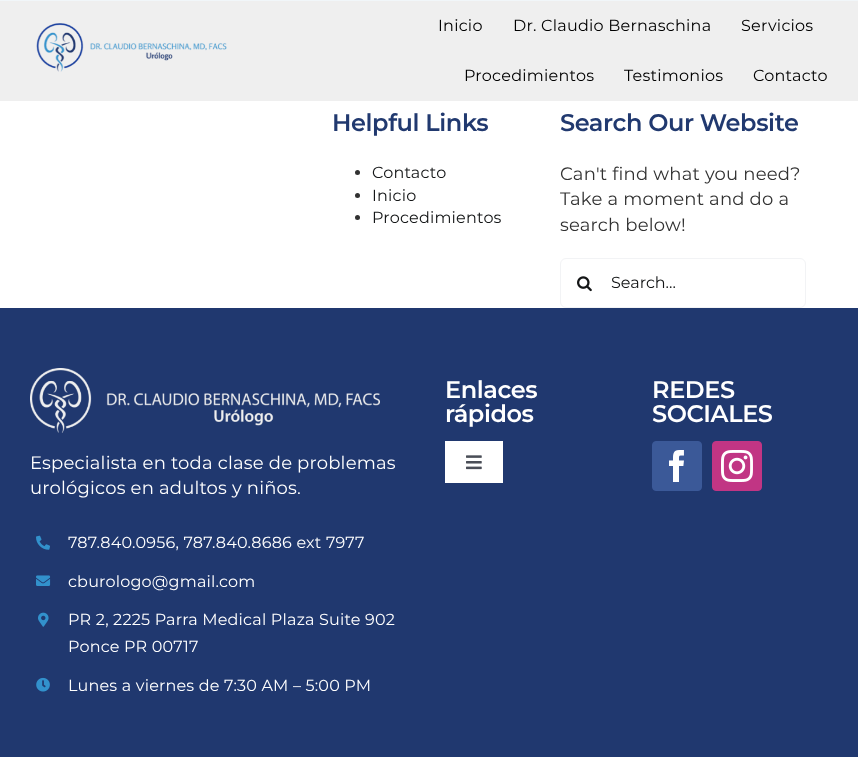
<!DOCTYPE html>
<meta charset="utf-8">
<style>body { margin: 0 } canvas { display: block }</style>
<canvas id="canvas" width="858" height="757"></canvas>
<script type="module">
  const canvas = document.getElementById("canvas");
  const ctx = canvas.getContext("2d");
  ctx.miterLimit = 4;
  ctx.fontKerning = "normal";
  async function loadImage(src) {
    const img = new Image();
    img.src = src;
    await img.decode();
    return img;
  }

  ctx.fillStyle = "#ffffff";
  ctx.fillRect(0, 0, 858, 757);
  ctx.fillStyle = "#efefef";
  ctx.fillRect(0, 1, 858, 100);
  ctx.fillStyle = "#f1f6f9";
  ctx.fillRect(0, 0, 858, 1);
  ctx.drawImage(await loadImage("img1.png"), 36, 23, 191, 49);
  ctx.letterSpacing = "0.25px";
  ctx.font = "16px Montserrat";
  ctx.fillStyle = "#000000";
  ctx.fillText("Inicio", 438, 31);
  ctx.fillText("Dr. Claudio Bernaschina", 513, 31);
  ctx.fillText("Servicios", 741, 31);
  ctx.fillText("Procedimientos", 464, 81);
  ctx.fillText("Testimonios", 624, 81);
  ctx.fillText("Contacto", 753, 81);
  ctx.letterSpacing = "-0.4px";
  ctx.font = "600 24px Montserrat";
  ctx.fillStyle = "#21396f";
  ctx.fillText("Helpful Links", 332, 131);
  ctx.fillStyle = "#323232";
  ctx.beginPath();
  ctx.arc(357.5, 172.5, 2.5, 0, Math.PI * 2);
  ctx.fill();
  ctx.letterSpacing = "0.2px";
  ctx.font = "16px Montserrat";
  ctx.fillStyle = "#141617";
  ctx.fillText("Contacto", 372, 178);
  ctx.fillStyle = "#323232";
  ctx.beginPath();
  ctx.arc(357.5, 195.5, 2.5, 0, Math.PI * 2);
  ctx.fill();
  ctx.fillStyle = "#141617";
  ctx.fillText("Inicio", 372, 201);
  ctx.fillStyle = "#323232";
  ctx.beginPath();
  ctx.arc(357.5, 217.5, 2.5, 0, Math.PI * 2);
  ctx.fill();
  ctx.fillStyle = "#141617";
  ctx.fillText("Procedimientos", 372, 223);
  ctx.letterSpacing = "-0.4px";
  ctx.font = "600 24px Montserrat";
  ctx.fillStyle = "#21396f";
  ctx.fillText("Search Our Website", 560, 131);
  ctx.letterSpacing = "0.2px";
  ctx.font = "18px Montserrat";
  ctx.fillStyle = "#323232";
  ctx.fillText("Can't find what you need?", 560, 180);
  ctx.fillText("Take a moment and do a", 560, 205);
  ctx.fillText("search below!", 560, 231);
  ctx.beginPath();
  ctx.roundRect(560.5, 258.5, 245, 49, 5.5);
  ctx.strokeStyle = "#f2f3f5";
  ctx.stroke();
  ctx.drawImage(await loadImage("img2.png"), 577, 276, 15, 16);
  ctx.letterSpacing = "0px";
  ctx.font = "16px Montserrat";
  ctx.fillStyle = "#141617";
  ctx.fillText("Search...", 611, 288);
  ctx.fillStyle = "#20386f";
  ctx.fillRect(0, 308, 858, 449);
  ctx.letterSpacing = "-0.4px";
  ctx.font = "600 24px Montserrat";
  ctx.fillStyle = "#ffffff";
  ctx.fillText("Enlaces", 445, 398);
  ctx.fillText("rápidos", 445, 422);
  ctx.fillRect(445, 441, 58, 42);
  ctx.drawImage(await loadImage("img3.png"), 466, 455, 16, 15);
  ctx.fillText("REDES", 652, 398);
  ctx.fillText("SOCIALES", 652, 422);
  ctx.fillStyle = "#3b5998";
  ctx.beginPath();
  ctx.roundRect(652.5, 441.5, 49, 49, 3.5);
  ctx.fill();
  ctx.strokeStyle = "#3b5998";
  ctx.stroke();
  ctx.drawImage(await loadImage("img4.png"), 669, 450, 15, 32);
  ctx.fillStyle = "#c13584";
  ctx.beginPath();
  ctx.roundRect(712.5, 441.5, 49, 49, 3.5);
  ctx.fill();
  ctx.strokeStyle = "#c13584";
  ctx.stroke();
  ctx.drawImage(await loadImage("img5.png"), 721, 450, 32, 32);
  ctx.drawImage(await loadImage("img6.png"), 30, 368, 350, 65);
  ctx.letterSpacing = "0.2px";
  ctx.font = "18px Montserrat";
  ctx.fillStyle = "#ffffff";
  ctx.fillText("Especialista en toda clase de problemas", 30, 469);
  ctx.fillText("urológicos en adultos y niños.", 30, 494);
  ctx.drawImage(await loadImage("img7.png"), 36, 535, 14, 15);
  ctx.font = "16px Montserrat";
  ctx.fillText("787.840.0956, 787.840.8686 ext 7977", 68, 548);
  ctx.drawImage(await loadImage("img8.png"), 36, 575, 15, 11);
  ctx.fillText("cburologo@gmail.com", 68, 587);
  ctx.drawImage(await loadImage("img9.png"), 38, 612, 11, 15);
  ctx.fillText("PR 2, 2225 Parra Medical Plaza Suite 902", 68, 625);
  ctx.fillText("Ponce PR 00717", 68, 652);
  ctx.drawImage(await loadImage("img10.png"), 36, 677, 14, 15);
  ctx.fillText("Lunes a viernes de 7:30 AM – 5:00 PM", 68, 691);
</script>
